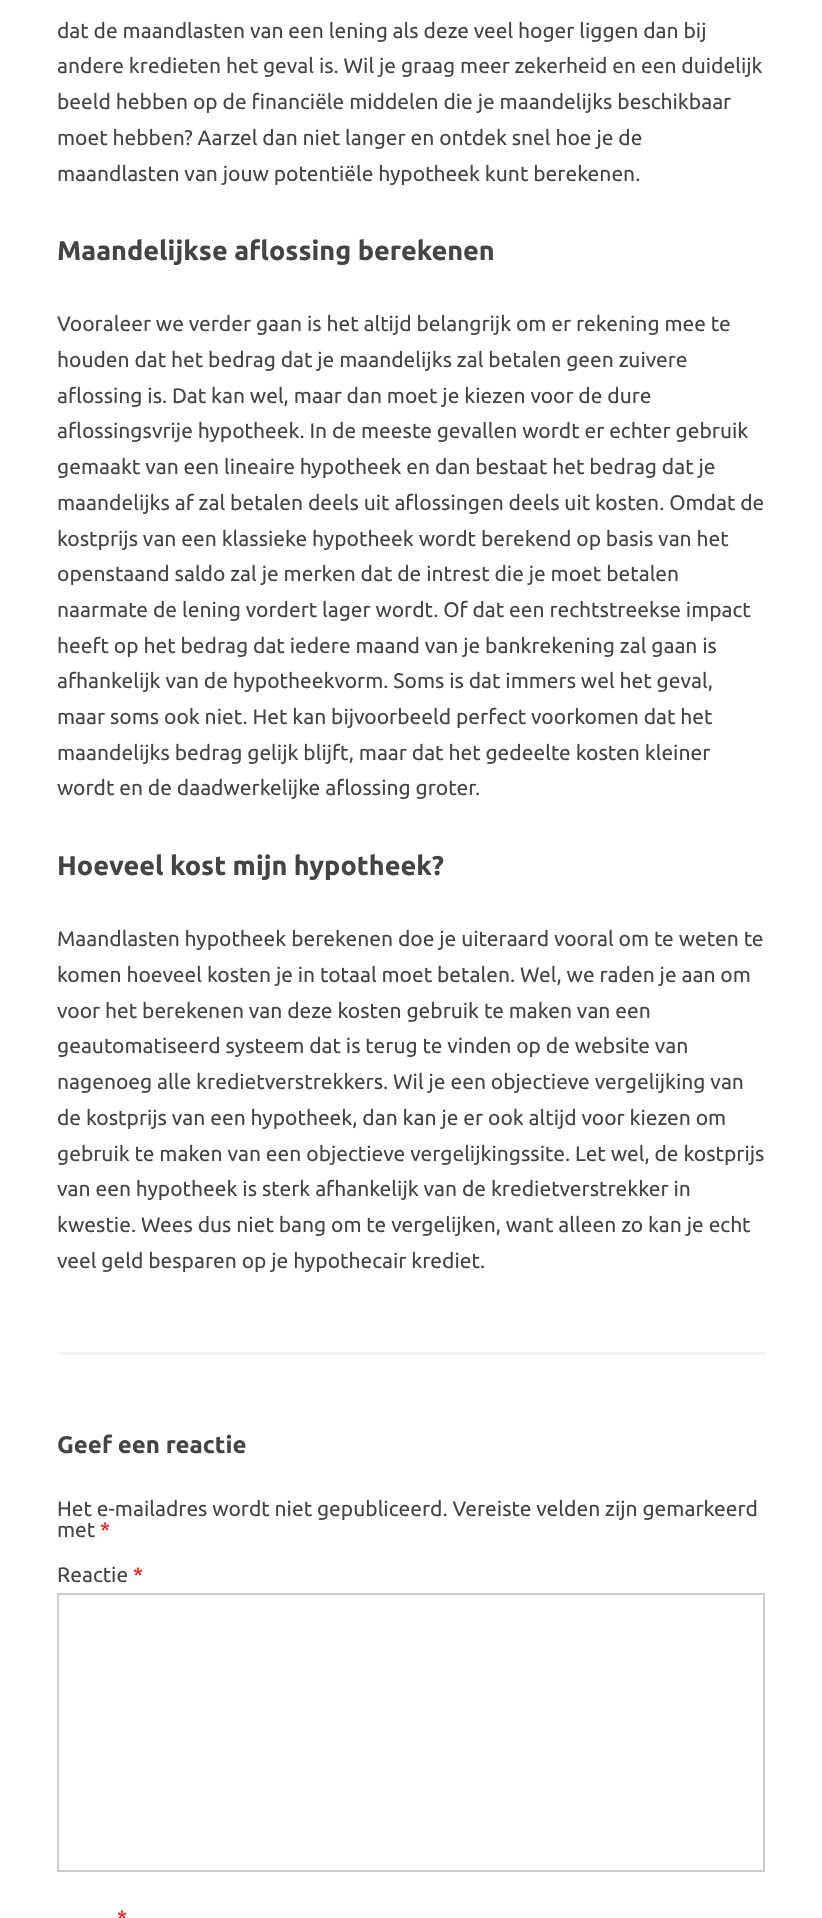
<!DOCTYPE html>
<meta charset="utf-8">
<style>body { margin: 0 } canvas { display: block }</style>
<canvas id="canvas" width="822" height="1918"></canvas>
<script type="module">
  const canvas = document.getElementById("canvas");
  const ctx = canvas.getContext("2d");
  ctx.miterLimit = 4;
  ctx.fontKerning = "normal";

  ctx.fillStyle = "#ffffff";
  ctx.fillRect(0, 0, 822, 1918);
  ctx.fillStyle = "#f3f3f3";
  ctx.fillRect(57, 1352, 708, 3);
  ctx.font = "21px Ubuntu";
  ctx.fillStyle = "#444444";
  ctx.fillText("dat de maandlasten van een lening als deze veel hoger liggen dan bij", 57, 38);
  ctx.fillText("andere kredieten het geval is. Wil je graag meer zekerheid en een duidelijk", 57, 73);
  ctx.fillText("beeld hebben op de financiële middelen die je maandelijks beschikbaar", 57, 109);
  ctx.fillText("moet hebben? Aarzel dan niet langer en ontdek snel hoe je de", 57, 145);
  ctx.fillText("maandlasten van jouw potentiële hypotheek kunt berekenen.", 57, 181);
  ctx.font = "bold 27px Ubuntu";
  ctx.fillText("Maandelijkse aflossing berekenen", 57, 260);
  ctx.font = "21px Ubuntu";
  ctx.fillText("Vooraleer we verder gaan is het altijd belangrijk om er rekening mee te", 57, 331);
  ctx.fillText("houden dat het bedrag dat je maandelijks zal betalen geen zuivere", 57, 367);
  ctx.fillText("aflossing is. Dat kan wel, maar dan moet je kiezen voor de dure", 57, 403);
  ctx.fillText("aflossingsvrije hypotheek. In de meeste gevallen wordt er echter gebruik", 57, 438);
  ctx.fillText("gemaakt van een lineaire hypotheek en dan bestaat het bedrag dat je", 57, 474);
  ctx.fillText("maandelijks af zal betalen deels uit aflossingen deels uit kosten. Omdat de", 57, 510);
  ctx.fillText("kostprijs van een klassieke hypotheek wordt berekend op basis van het", 57, 546);
  ctx.fillText("openstaand saldo zal je merken dat de intrest die je moet betalen", 57, 581);
  ctx.fillText("naarmate de lening vordert lager wordt. Of dat een rechtstreekse impact", 57, 617);
  ctx.fillText("heeft op het bedrag dat iedere maand van je bankrekening zal gaan is", 57, 653);
  ctx.fillText("afhankelijk van de hypotheekvorm. Soms is dat immers wel het geval,", 57, 688);
  ctx.fillText("maar soms ook niet. Het kan bijvoorbeeld perfect voorkomen dat het", 57, 724);
  ctx.fillText("maandelijks bedrag gelijk blijft, maar dat het gedeelte kosten kleiner", 57, 760);
  ctx.fillText("wordt en de daadwerkelijke aflossing groter.", 57, 795);
  ctx.font = "bold 27px Ubuntu";
  ctx.fillText("Hoeveel kost mijn hypotheek?", 57, 875);
  ctx.font = "21px Ubuntu";
  ctx.fillText("Maandlasten hypotheek berekenen doe je uiteraard vooral om te weten te", 57, 946);
  ctx.fillText("komen hoeveel kosten je in totaal moet betalen. Wel, we raden je aan om", 57, 982);
  ctx.fillText("voor het berekenen van deze kosten gebruik te maken van een", 57, 1018);
  ctx.fillText("geautomatiseerd systeem dat is terug te vinden op de website van", 57, 1053);
  ctx.fillText("nagenoeg alle kredietverstrekkers. Wil je een objectieve vergelijking van", 57, 1089);
  ctx.fillText("de kostprijs van een hypotheek, dan kan je er ook altijd voor kiezen om", 57, 1125);
  ctx.fillText("gebruik te maken van een objectieve vergelijkingssite. Let wel, de kostprijs", 57, 1161);
  ctx.fillText("van een hypotheek is sterk afhankelijk van de kredietverstrekker in", 57, 1196);
  ctx.fillText("kwestie. Wees dus niet bang om te vergelijken, want alleen zo kan je echt", 57, 1232);
  ctx.fillText("veel geld besparen op je hypothecair krediet.", 57, 1268);
  ctx.font = "bold 24px Ubuntu";
  ctx.fillText("Geef een reactie", 57, 1453);
  ctx.font = "21px Ubuntu";
  ctx.fillText("Het e-mailadres wordt niet gepubliceerd. Vereiste velden zijn gemarkeerd", 57, 1516);
  ctx.fillText("met", 57, 1537);
  ctx.fillStyle = "#ff0000";
  ctx.fillText("*", 100, 1537);
  ctx.fillStyle = "#444444";
  ctx.fillText("Reactie", 57, 1582);
  ctx.fillStyle = "#ff0000";
  ctx.fillText("*", 133, 1582);
  ctx.strokeStyle = "#cccccc";
  ctx.lineWidth = 2;
  ctx.strokeRect(58, 1594, 706, 277);
  ctx.fillText("*", 117, 1925);
</script>
